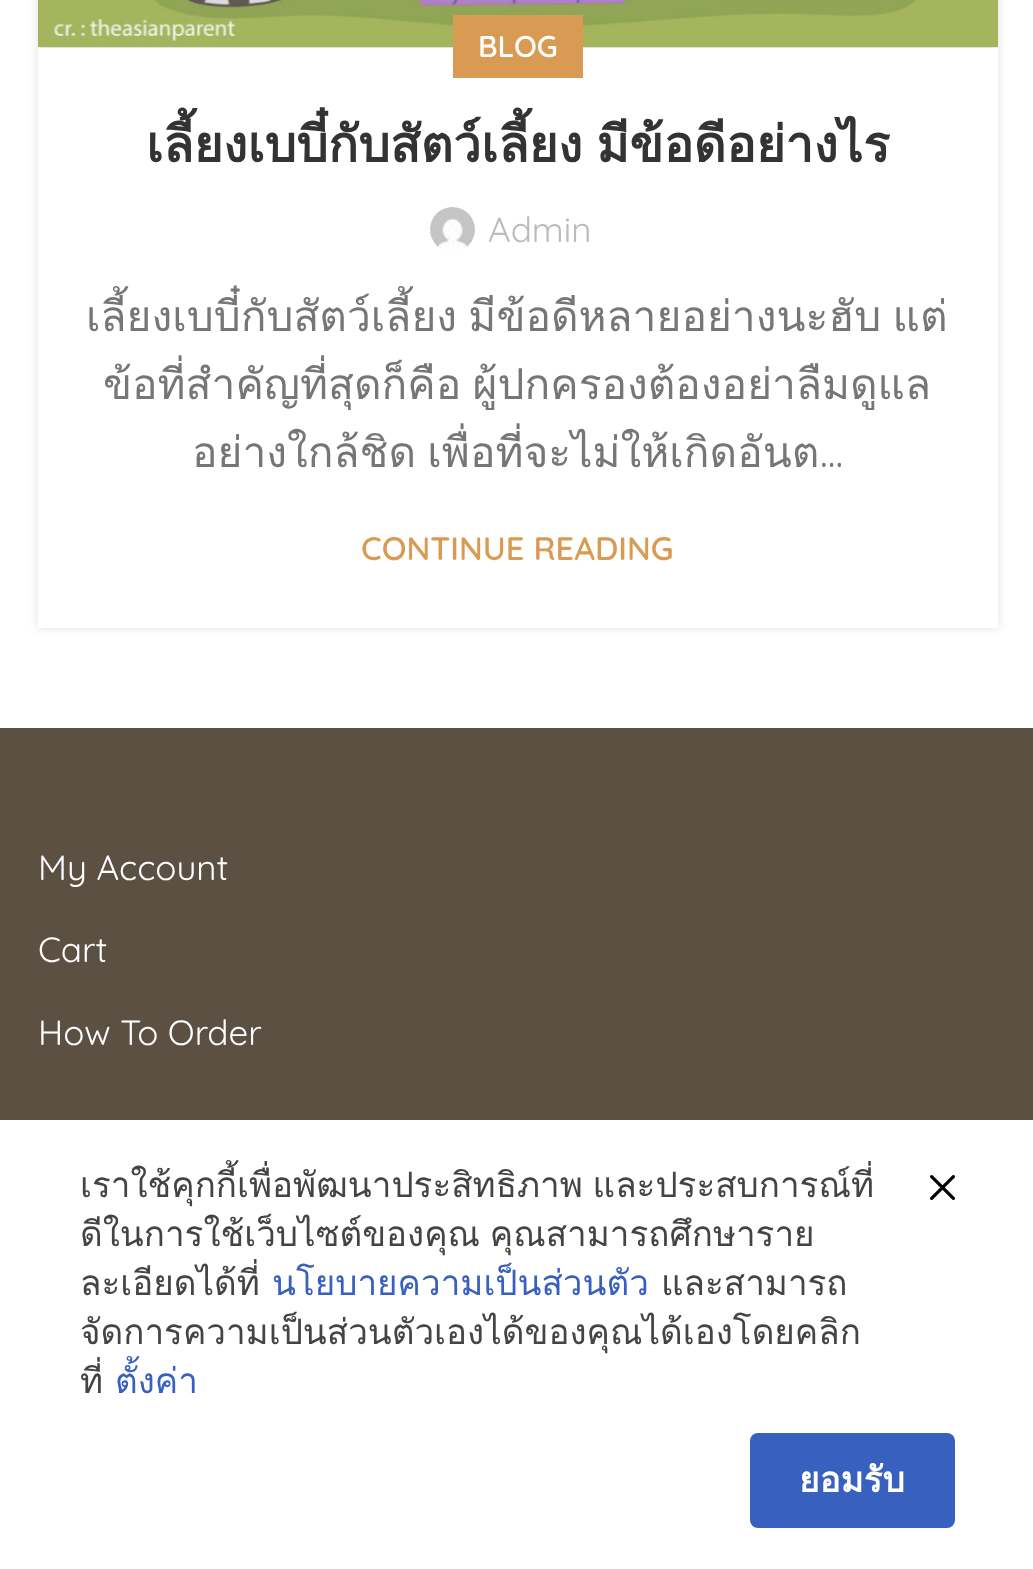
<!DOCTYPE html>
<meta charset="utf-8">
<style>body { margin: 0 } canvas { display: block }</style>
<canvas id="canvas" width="1033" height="1569"></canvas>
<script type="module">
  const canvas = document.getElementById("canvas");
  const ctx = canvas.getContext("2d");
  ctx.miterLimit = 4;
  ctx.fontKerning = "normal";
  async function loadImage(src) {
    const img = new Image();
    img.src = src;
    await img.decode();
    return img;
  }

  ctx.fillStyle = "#ffffff";
  ctx.fillRect(0, 0, 1033, 1569);
  ctx.fillStyle = "rgba(0, 0, 0, 0.12)";
  ctx.filter = "blur(5px)";
  ctx.beginPath();
  ctx.rect(38, -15, 960, 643);
  ctx.fill();
  ctx.filter = "none";
  ctx.drawImage(await loadImage("img1.png"), 38, 0, 960, 47);
  ctx.fillStyle = "#ffffff";
  ctx.fillRect(38, 48, 960, 580);
  ctx.fillStyle = "#d99b53";
  ctx.fillRect(453, 15, 130, 63);
  ctx.font = "600 30px Quicksand";
  ctx.fillStyle = "#ffffff";
  ctx.fillText("BLOG", 478, 57);
  ctx.wordSpacing = "-3px";
  ctx.font = "bold 50px Loma";
  ctx.fillStyle = "#333333";
  ctx.fillText("เลี้ยงเบบี๋กับสัตว์เลี้ยง มีข้อดีอย่างไร", 146, 162);
  ctx.drawImage(await loadImage("img2.png"), 430, 207, 45, 42);
  ctx.wordSpacing = "0px";
  ctx.font = "35px Quicksand";
  ctx.fillStyle = "#bbbbbb";
  ctx.fillText("Admin", 488, 242);
  ctx.wordSpacing = "-3px";
  ctx.font = "42.5px Loma";
  ctx.fillStyle = "#767676";
  ctx.fillText("เลี้ยงเบบี๋กับสัตว์เลี้ยง มีข้อดีหลายอย่างนะฮับ แต่", 86, 331);
  ctx.fillText("ข้อที่สำคัญที่สุดก็คือ ผู้ปกครองต้องอย่าลืมดูแล", 103, 399);
  ctx.fillText("อย่างใกล้ชิด เพื่อที่จะไม่ให้เกิดอันต", 192, 467);
  ctx.wordSpacing = "0px";
  ctx.font = "42.5px Quicksand";
  ctx.fillText("...", 820, 467);
  ctx.font = "600 32.5px Quicksand";
  ctx.fillStyle = "#d99b53";
  ctx.fillText("CONTINUE READING", 361, 560);
  ctx.fillStyle = "#5c5043";
  ctx.fillRect(0, 728, 1033, 392);
  ctx.font = "35px Quicksand";
  ctx.fillStyle = "#ffffff";
  ctx.fillText("My Account", 38, 880);
  ctx.fillText("Cart", 38, 962);
  ctx.fillText("How To Order", 38, 1045);
  ctx.wordSpacing = "-2px";
  ctx.font = "35px Loma";
  ctx.fillStyle = "#444444";
  ctx.fillText("เราใช้คุกกี้เพื่อพัฒนาประสิทธิภาพ และประสบการณ์ที่", 80, 1197);
  ctx.fillText("ดีในการใช้เว็บไซต์ของคุณ คุณสามารถศึกษาราย", 80, 1246);
  ctx.wordSpacing = "0px";
  ctx.fillText("ละเอียดได้ที่", 80, 1295);
  ctx.fillStyle = "#3860be";
  ctx.fillText("นโยบายความเป็นส่วนตัว", 272, 1295);
  ctx.fillStyle = "#444444";
  ctx.fillText("และสามารถ", 661, 1295);
  ctx.fillText("จัดการความเป็นส่วนตัวเองได้ของคุณได้เองโดยคลิก", 80, 1344);
  ctx.fillText("ที่", 80, 1393);
  ctx.fillStyle = "#3860be";
  ctx.fillText("ตั้งค่า", 115, 1393);
  ctx.drawImage(await loadImage("img3.png"), 930, 1175, 25, 25);
  ctx.beginPath();
  ctx.roundRect(750, 1433, 205, 95, 8);
  ctx.fill();
  ctx.font = "bold 35px Loma";
  ctx.fillStyle = "#ffffff";
  ctx.fillText("ยอมรับ", 799, 1492);
</script>
